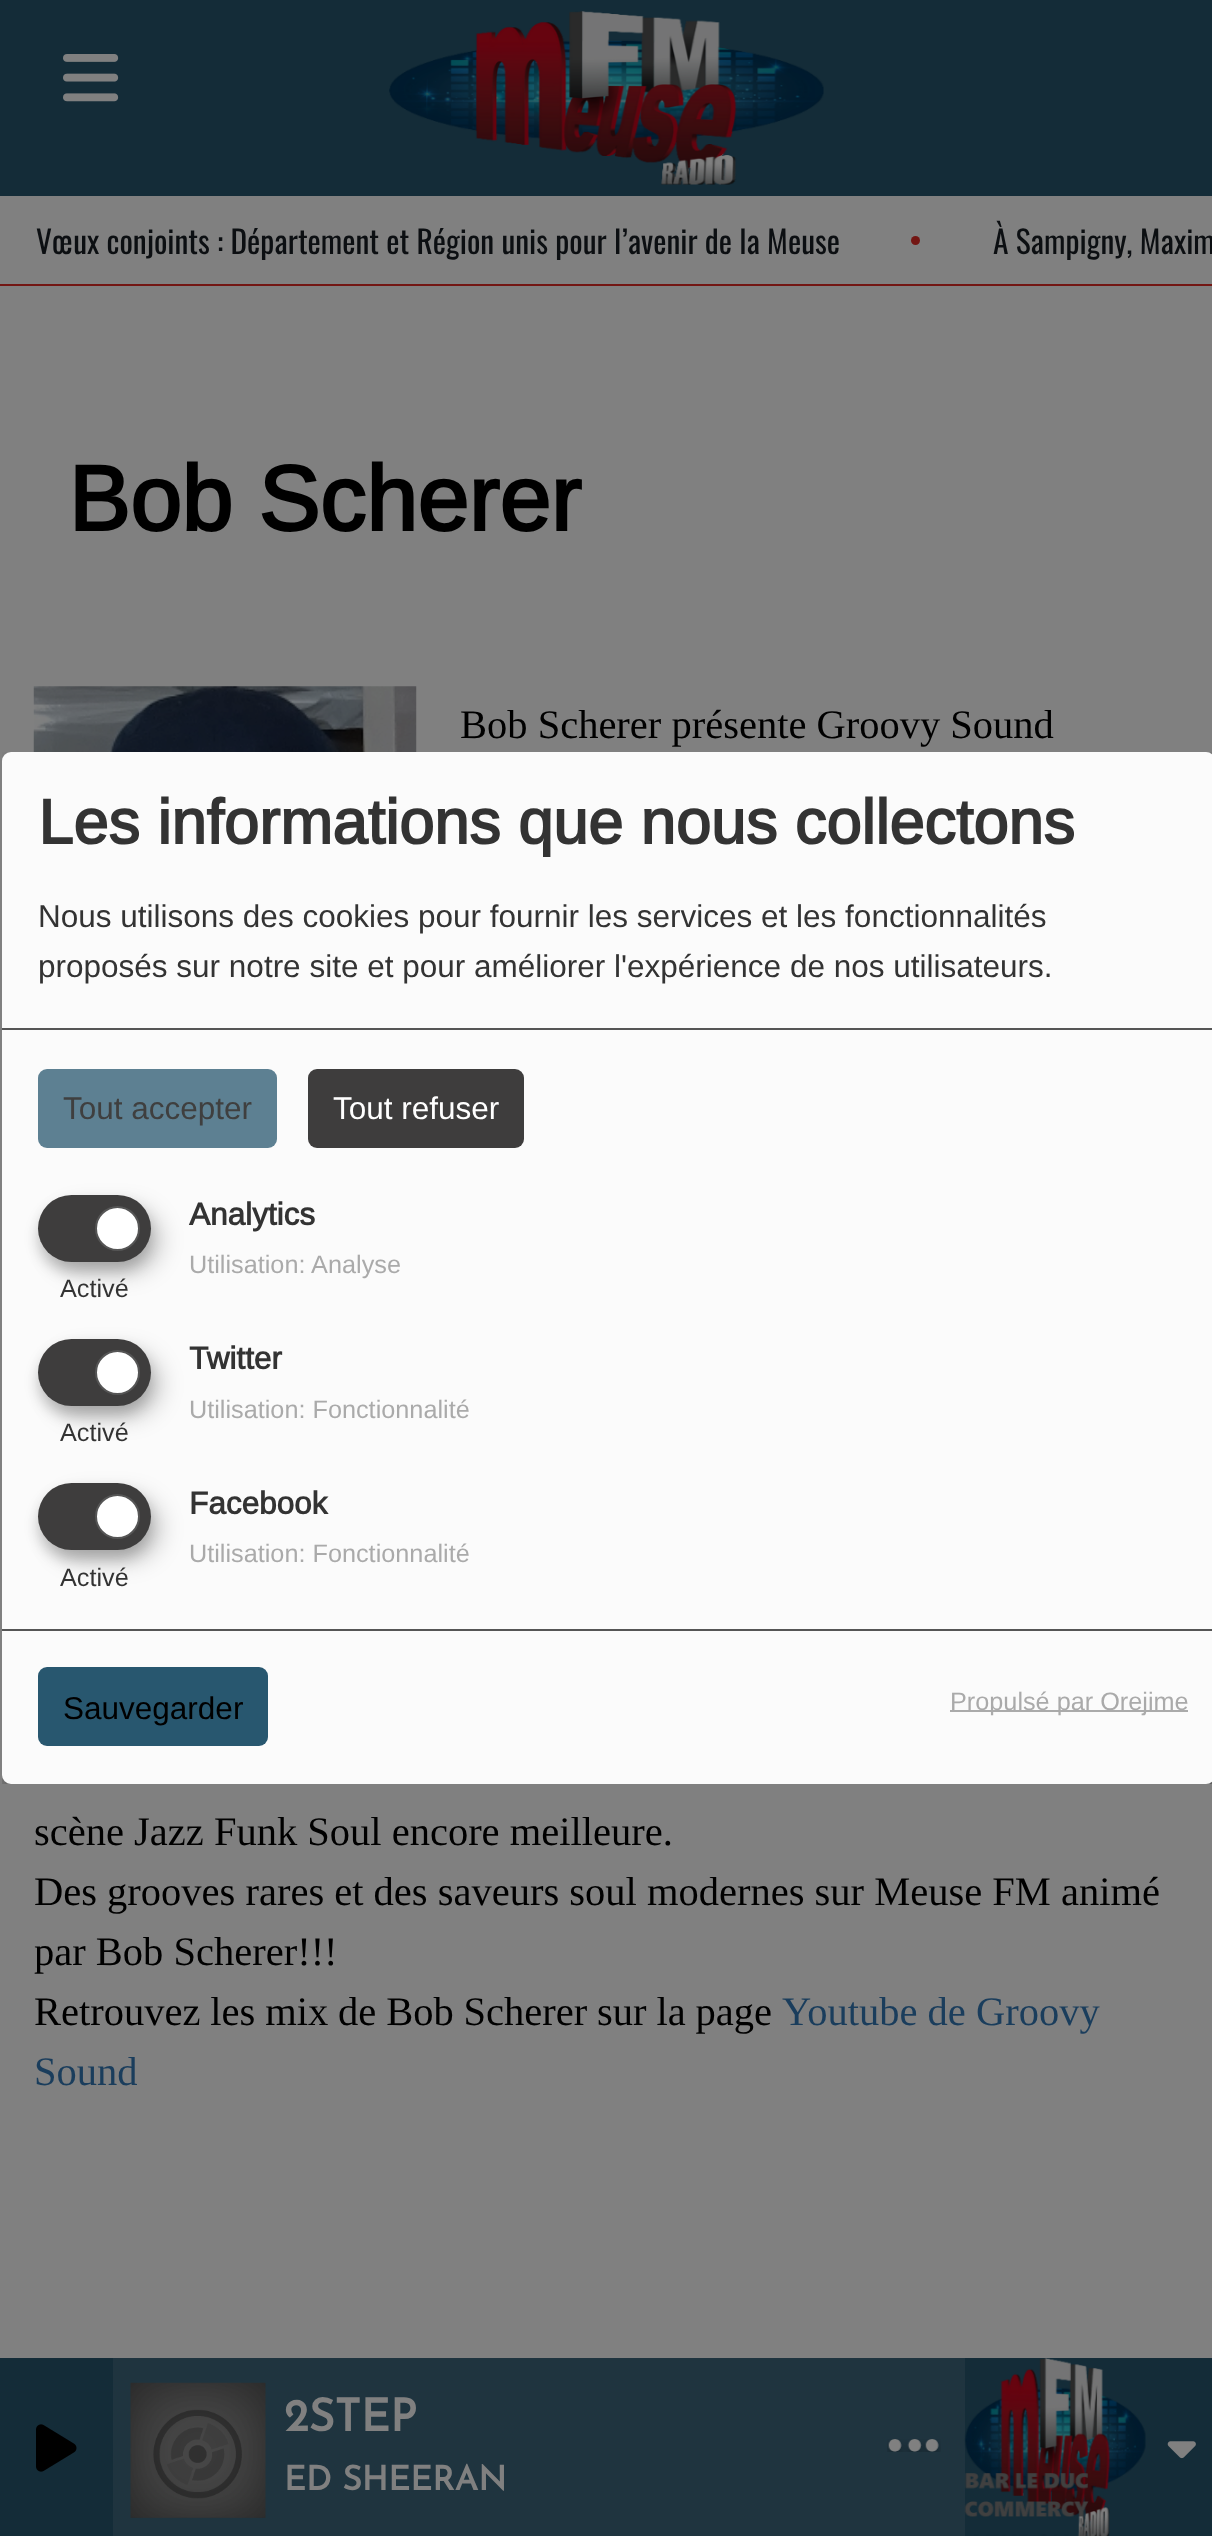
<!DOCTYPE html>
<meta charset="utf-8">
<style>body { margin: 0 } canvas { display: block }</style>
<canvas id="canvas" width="1212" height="2536"></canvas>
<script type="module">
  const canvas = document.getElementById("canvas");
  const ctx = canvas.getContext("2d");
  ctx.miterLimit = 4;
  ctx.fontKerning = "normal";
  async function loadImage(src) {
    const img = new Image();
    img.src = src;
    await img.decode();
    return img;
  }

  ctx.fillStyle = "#808080";
  ctx.fillRect(0, 0, 1212, 2536);
  ctx.fillStyle = "#142c38";
  ctx.fillRect(0, 0, 1212, 196);
  ctx.drawImage(await loadImage("img1.png"), 63, 54, 56, 48);
  ctx.drawImage(await loadImage("img2.png"), 389, 11, 435, 174);
  ctx.fillStyle = "#731613";
  ctx.fillRect(0, 284, 1212, 2);
  ctx.font = "31.5px Oswald";
  ctx.fillStyle = "#0c0f12";
  ctx.fillText("Vœux conjoints : Département et Région unis pour l’avenir de la Meuse", 36, 254);
  ctx.fillStyle = "#731613";
  ctx.beginPath();
  ctx.arc(915.5, 240.5, 4.5, 0, Math.PI * 2);
  ctx.fill();
  ctx.fillStyle = "#0c0f12";
  ctx.fillText("À Sampigny, Maxim", 993, 254);
  ctx.fillStyle = "#142c38";
  ctx.fillRect(0, 2358, 1212, 178);
  ctx.fillStyle = "#1f343f";
  ctx.fillRect(113, 2358, 852, 178);
  ctx.drawImage(await loadImage("img3.png"), 887, 2439, 54, 13);
  ctx.drawImage(await loadImage("img4.png"), 964, 2358, 182, 178);
  ctx.drawImage(await loadImage("img5.png"), 1167, 2441, 29, 18);
  ctx.drawImage(await loadImage("img6.png"), 36, 2424, 41, 48);
  ctx.drawImage(await loadImage("img7.png"), 130, 2382, 136, 136);
  ctx.font = "bold 45px Josefin Sans";
  ctx.fillStyle = "#808080";
  ctx.fillText("2STEP", 284, 2431);
  ctx.font = "bold 33.75px Josefin Sans";
  ctx.fillText("ED SHEERAN", 284, 2490);
  ctx.font = "bold 92.25px Arimo";
  ctx.fillStyle = "#000000";
  ctx.fillText("Bob Scherer", 68, 531);
  ctx.drawImage(await loadImage("img8.png"), 33, 686, 384, 66);
  ctx.font = "40.5px Liberation Serif";
  ctx.fillText("Bob Scherer présente Groovy Sound", 460, 738);
  ctx.fillText("scène Jazz Funk Soul encore meilleure.", 34, 1845);
  ctx.fillText("Des grooves rares et des saveurs soul modernes sur Meuse FM animé", 34, 1905);
  ctx.fillText("par Bob Scherer!!!", 34, 1965);
  ctx.wordSpacing = "-0.25px";
  ctx.fillText("Retrouvez les mix de Bob Scherer sur la page", 34, 2025);
  ctx.wordSpacing = "0px";
  ctx.fillStyle = "#1a3d5c";
  ctx.fillText("Youtube de Groovy", 782, 2025);
  ctx.fillText("Sound", 34, 2085);
  ctx.save();
  ctx.beginPath();
  ctx.rect(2, 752, 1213, 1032);
  ctx.clip();
  ctx.fillStyle = "rgba(0, 0, 0, 0.19)";
  ctx.filter = "blur(11px)";
  ctx.beginPath();
  ctx.roundRect(14, 763, 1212, 1033, 9);
  ctx.fill();
  ctx.filter = "none";
  ctx.fillStyle = "rgba(0, 0, 0, 0.2)";
  ctx.filter = "blur(7px)";
  ctx.beginPath();
  ctx.roundRect(2, 761, 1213, 1032, 9);
  ctx.fill();
  ctx.filter = "none";
  ctx.restore();
  ctx.fillStyle = "#fbfbfb";
  ctx.beginPath();
  ctx.roundRect(2, 752, 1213, 1032, 9);
  ctx.fill();
  ctx.fillStyle = "#555555";
  ctx.fillRect(2, 1028, 1210, 2);
  ctx.font = "bold 63px Arimo";
  ctx.fillStyle = "#333333";
  ctx.fillText("Les informations que nous collectons", 38, 844);
  ctx.font = "31.5px Arimo";
  ctx.fillText("Nous utilisons des cookies pour fournir les services et les fonctionnalités", 38, 927);
  ctx.fillText("proposés sur notre site et pour améliorer l'expérience de nos utilisateurs.", 38, 977);
  ctx.fillStyle = "#5d8092";
  ctx.beginPath();
  ctx.roundRect(38, 1069, 239, 79, 9);
  ctx.fill();
  ctx.fillStyle = "#3f3f3f";
  ctx.fillText("Tout accepter", 63, 1119);
  ctx.fillStyle = "#3e3d3d";
  ctx.beginPath();
  ctx.roundRect(308, 1069, 216, 79, 9);
  ctx.fill();
  ctx.fillStyle = "#ffffff";
  ctx.fillText("Tout refuser", 333, 1119);
  ctx.font = "bold 31.5px Arimo";
  ctx.fillStyle = "#333333";
  ctx.fillText("Analytics", 189, 1225);
  ctx.fillStyle = "rgba(0, 0, 0, 0.19)";
  ctx.filter = "blur(11px)";
  ctx.beginPath();
  ctx.roundRect(50, 1206, 112, 68, 34);
  ctx.fill();
  ctx.filter = "none";
  ctx.fillStyle = "rgba(0, 0, 0, 0.2)";
  ctx.filter = "blur(7px)";
  ctx.beginPath();
  ctx.roundRect(38, 1204, 113, 67, 33.5);
  ctx.fill();
  ctx.filter = "none";
  ctx.fillStyle = "#3e3d3d";
  ctx.beginPath();
  ctx.roundRect(38, 1195, 113, 67, 33.5);
  ctx.fill();
  ctx.fillStyle = "#ffffff";
  ctx.beginPath();
  ctx.arc(117.5, 1228.5, 21.5, 0, Math.PI * 2);
  ctx.fill();
  ctx.strokeStyle = "#555555";
  ctx.lineWidth = 2;
  ctx.stroke();
  ctx.font = "25.25px Arimo";
  ctx.fillStyle = "#333333";
  ctx.fillText("Activé", 60, 1297);
  ctx.fillStyle = "#aaaaaa";
  ctx.fillText("Utilisation: Analyse", 189, 1273);
  ctx.font = "bold 31.5px Arimo";
  ctx.fillStyle = "#333333";
  ctx.fillText("Twitter", 189, 1369);
  ctx.fillStyle = "rgba(0, 0, 0, 0.19)";
  ctx.filter = "blur(11px)";
  ctx.beginPath();
  ctx.roundRect(50, 1350, 112, 68, 34);
  ctx.fill();
  ctx.filter = "none";
  ctx.fillStyle = "rgba(0, 0, 0, 0.2)";
  ctx.filter = "blur(7px)";
  ctx.beginPath();
  ctx.roundRect(38, 1348, 113, 67, 33.5);
  ctx.fill();
  ctx.filter = "none";
  ctx.fillStyle = "#3e3d3d";
  ctx.beginPath();
  ctx.roundRect(38, 1339, 113, 67, 33.5);
  ctx.fill();
  ctx.fillStyle = "#ffffff";
  ctx.beginPath();
  ctx.arc(117.5, 1372.5, 21.5, 0, Math.PI * 2);
  ctx.fill();
  ctx.stroke();
  ctx.font = "25.25px Arimo";
  ctx.fillStyle = "#333333";
  ctx.fillText("Activé", 60, 1441);
  ctx.fillStyle = "#aaaaaa";
  ctx.fillText("Utilisation: Fonctionnalité", 189, 1418);
  ctx.font = "bold 31.5px Arimo";
  ctx.fillStyle = "#333333";
  ctx.fillText("Facebook", 189, 1514);
  ctx.fillStyle = "rgba(0, 0, 0, 0.19)";
  ctx.filter = "blur(11px)";
  ctx.beginPath();
  ctx.roundRect(50, 1494, 112, 68, 34);
  ctx.fill();
  ctx.filter = "none";
  ctx.fillStyle = "rgba(0, 0, 0, 0.2)";
  ctx.filter = "blur(7px)";
  ctx.beginPath();
  ctx.roundRect(38, 1492, 113, 67, 33.5);
  ctx.fill();
  ctx.filter = "none";
  ctx.fillStyle = "#3e3d3d";
  ctx.beginPath();
  ctx.roundRect(38, 1483, 113, 67, 33.5);
  ctx.fill();
  ctx.fillStyle = "#ffffff";
  ctx.beginPath();
  ctx.arc(117.5, 1516.5, 21.5, 0, Math.PI * 2);
  ctx.fill();
  ctx.stroke();
  ctx.font = "25.25px Arimo";
  ctx.fillStyle = "#333333";
  ctx.fillText("Activé", 60, 1586);
  ctx.fillStyle = "#aaaaaa";
  ctx.fillText("Utilisation: Fonctionnalité", 189, 1562);
  ctx.fillStyle = "#555555";
  ctx.fillRect(2, 1629, 1210, 2);
  ctx.fillStyle = "#28576f";
  ctx.beginPath();
  ctx.roundRect(38, 1667, 230, 79, 9);
  ctx.fill();
  ctx.font = "31.5px Arimo";
  ctx.fillStyle = "#000000";
  ctx.fillText("Sauvegarder", 63, 1719);
  ctx.fillStyle = "#aaaaaa";
  ctx.fillRect(950, 1710, 238, 2);
  ctx.font = "25.25px Arimo";
  ctx.fillText("Propulsé par Orejime", 950, 1710);
</script>
